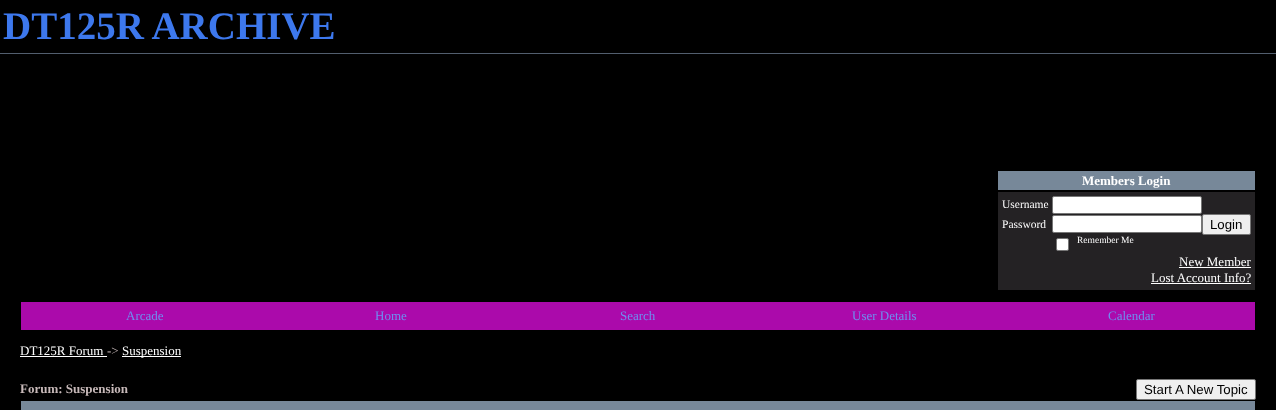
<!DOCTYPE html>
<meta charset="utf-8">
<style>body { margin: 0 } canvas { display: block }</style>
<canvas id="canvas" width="1276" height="410"></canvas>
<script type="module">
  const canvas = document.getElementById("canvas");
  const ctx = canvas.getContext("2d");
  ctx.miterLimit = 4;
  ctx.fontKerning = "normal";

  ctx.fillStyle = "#000000";
  ctx.fillRect(0, 0, 1276, 410);
  ctx.fillStyle = "#525e6e";
  ctx.fillRect(0, 53, 1276, 1);
  ctx.font = "bold 39px Liberation Serif";
  ctx.fillStyle = "#3d78ed";
  ctx.fillText("DT125R ARCHIVE", 3, 39);
  ctx.fillStyle = "#778899";
  ctx.fillRect(998, 171, 257, 19);
  ctx.font = "bold 13px Liberation Serif";
  ctx.fillStyle = "#ffffff";
  ctx.fillText("Members Login", 1082, 185);
  ctx.fillStyle = "#242224";
  ctx.fillRect(998, 192, 257, 98);
  ctx.font = "11.5px Liberation Serif";
  ctx.fillStyle = "#ffffff";
  ctx.fillText("Username", 1002, 208);
  ctx.beginPath();
  ctx.roundRect(1052.5, 196.5, 149, 17, 1.5);
  ctx.fill();
  ctx.strokeStyle = "#767676";
  ctx.stroke();
  ctx.fillText("Password", 1002, 228);
  ctx.beginPath();
  ctx.roundRect(1052.5, 215.5, 149, 17, 1.5);
  ctx.fill();
  ctx.stroke();
  ctx.fillStyle = "#efefef";
  ctx.beginPath();
  ctx.roundRect(1202.5, 214.5, 48, 20, 1.5);
  ctx.fill();
  ctx.stroke();
  ctx.font = "13.25px Liberation Sans";
  ctx.fillStyle = "#000000";
  ctx.fillText("Login", 1210, 229);
  ctx.fillStyle = "#ffffff";
  ctx.beginPath();
  ctx.roundRect(1056.5, 238.5, 12, 12, 1.5);
  ctx.fill();
  ctx.stroke();
  ctx.font = "9.5px Liberation Serif";
  ctx.fillText("Remember Me", 1077, 243);
  ctx.font = "13px Liberation Serif";
  ctx.fillText("New Member", 1179, 266);
  ctx.fillRect(1179, 267, 72, 1);
  ctx.fillText("Lost Account Info?", 1151, 282);
  ctx.fillRect(1151, 283, 100, 1);
  ctx.fillStyle = "#ab0aab";
  ctx.fillRect(21, 302, 1234, 28);
  ctx.fillStyle = "#6e8ff0";
  ctx.fillText("Arcade", 126, 320);
  ctx.fillText("Home", 375, 320);
  ctx.fillText("Search", 620, 320);
  ctx.fillText("User Details", 852, 320);
  ctx.fillText("Calendar", 1108, 320);
  ctx.fillStyle = "#ffffff";
  ctx.fillText("DT125R Forum", 20, 355);
  ctx.fillRect(20, 356, 87, 1);
  ctx.fillStyle = "#c7b9b9";
  ctx.fillText("->", 107, 355);
  ctx.fillStyle = "#ffffff";
  ctx.fillRect(122, 356, 59, 1);
  ctx.fillText("Suspension", 122, 355);
  ctx.font = "bold 13px Liberation Serif";
  ctx.fillStyle = "#c7b9b9";
  ctx.fillText("Forum: Suspension", 20, 393);
  ctx.fillStyle = "#efefef";
  ctx.beginPath();
  ctx.roundRect(1136.5, 379.5, 119, 20, 1.5);
  ctx.fill();
  ctx.stroke();
  ctx.font = "13.25px Liberation Sans";
  ctx.fillStyle = "#000000";
  ctx.fillText("Start A New Topic", 1144, 394);
  ctx.fillStyle = "#778899";
  ctx.fillRect(21, 401, 1234, 9);
</script>
